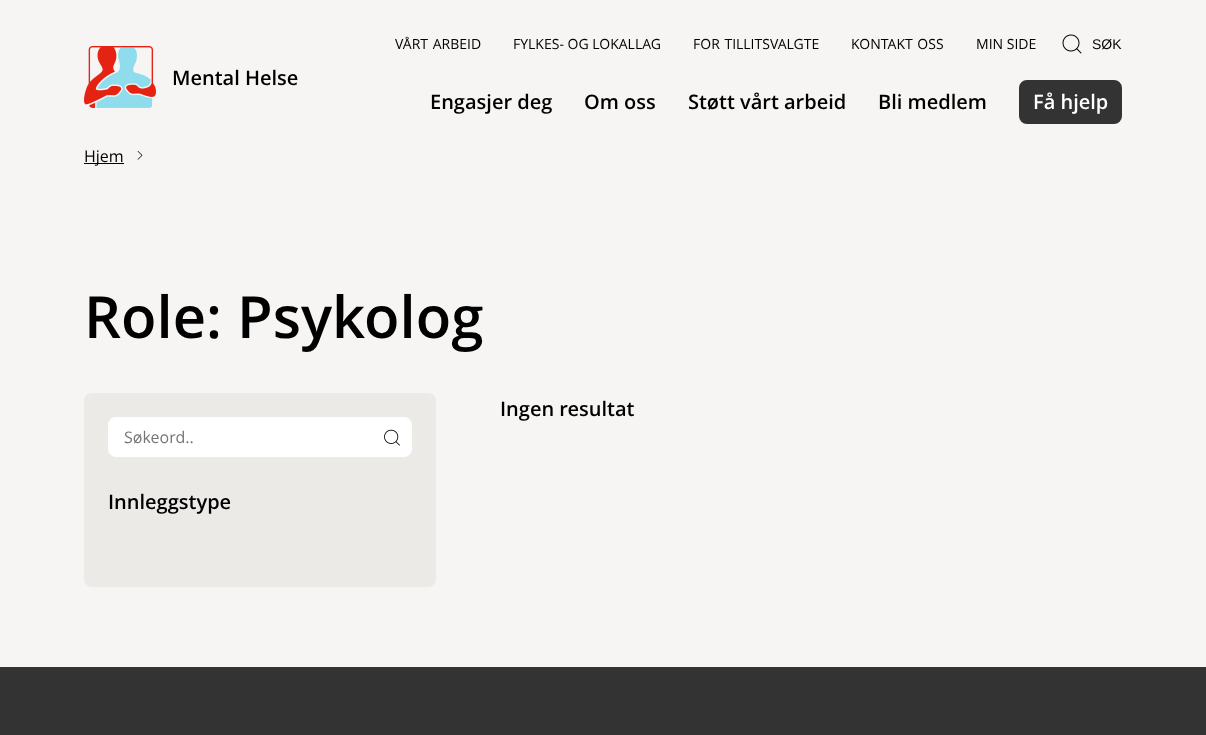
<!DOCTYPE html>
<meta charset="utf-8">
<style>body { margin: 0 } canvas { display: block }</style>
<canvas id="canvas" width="1206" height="735"></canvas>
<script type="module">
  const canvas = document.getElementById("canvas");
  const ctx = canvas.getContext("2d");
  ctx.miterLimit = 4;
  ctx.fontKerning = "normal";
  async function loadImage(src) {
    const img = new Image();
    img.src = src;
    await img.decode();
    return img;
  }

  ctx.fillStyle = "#f6f5f4";
  ctx.fillRect(0, 0, 1206, 735);
  ctx.drawImage(await loadImage("img1.png"), 84, 46, 72, 62);
  ctx.font = "600 20px Open Sans";
  ctx.fillStyle = "#000000";
  ctx.fillText("Mental Helse", 172, 85);
  ctx.wordSpacing = "1px";
  ctx.font = "14px Open Sans";
  ctx.fillText("VÅRT ARBEID", 395, 49);
  ctx.wordSpacing = "0px";
  ctx.fillText("FYLKES- OG LOKALLAG", 513, 49);
  ctx.wordSpacing = "1px";
  ctx.fillText("FOR TILLITSVALGTE", 693, 49);
  ctx.fillText("KONTAKT OSS", 851, 49);
  ctx.wordSpacing = "0px";
  ctx.fillText("MIN SIDE", 976, 49);
  ctx.drawImage(await loadImage("img2.png"), 1062, 34, 20, 20);
  ctx.font = "14px Liberation Sans";
  ctx.fillText("SØK", 1092, 49);
  ctx.font = "600 20px Open Sans";
  ctx.fillText("Engasjer deg", 430, 109);
  ctx.fillText("Om oss", 584, 109);
  ctx.fillText("Støtt vårt arbeid", 688, 109);
  ctx.fillText("Bli medlem", 878, 109);
  ctx.fillStyle = "#333333";
  ctx.beginPath();
  ctx.roundRect(1020, 81, 101, 42, 7);
  ctx.fill();
  ctx.strokeStyle = "#333333";
  ctx.lineWidth = 2;
  ctx.stroke();
  ctx.fillStyle = "#ffffff";
  ctx.fillText("Få hjelp", 1033, 109);
  ctx.fillStyle = "#000000";
  ctx.fillRect(84, 163, 40, 1);
  ctx.font = "16px Open Sans";
  ctx.fillText("Hjem", 84, 162);
  ctx.drawImage(await loadImage("img3.png"), 137, 151, 6, 9);
  ctx.font = "600 58px Open Sans";
  ctx.fillText("Role: Psykolog", 84, 338);
  ctx.font = "600 20px Open Sans";
  ctx.fillText("Ingen resultat", 500, 416);
  ctx.fillStyle = "#eceae6";
  ctx.beginPath();
  ctx.roundRect(84, 393, 352, 194, 8);
  ctx.fill();
  ctx.fillStyle = "#ffffff";
  ctx.beginPath();
  ctx.roundRect(108, 417, 304, 40, 8);
  ctx.fill();
  ctx.font = "16px Open Sans";
  ctx.fillStyle = "#757575";
  ctx.fillText("Søkeord..", 124, 443);
  ctx.drawImage(await loadImage("img4.png"), 384, 429, 16, 17);
  ctx.font = "600 20px Open Sans";
  ctx.fillStyle = "#000000";
  ctx.fillText("Innleggstype", 108, 509);
  ctx.fillStyle = "#333333";
  ctx.fillRect(0, 667, 1206, 68);
</script>
